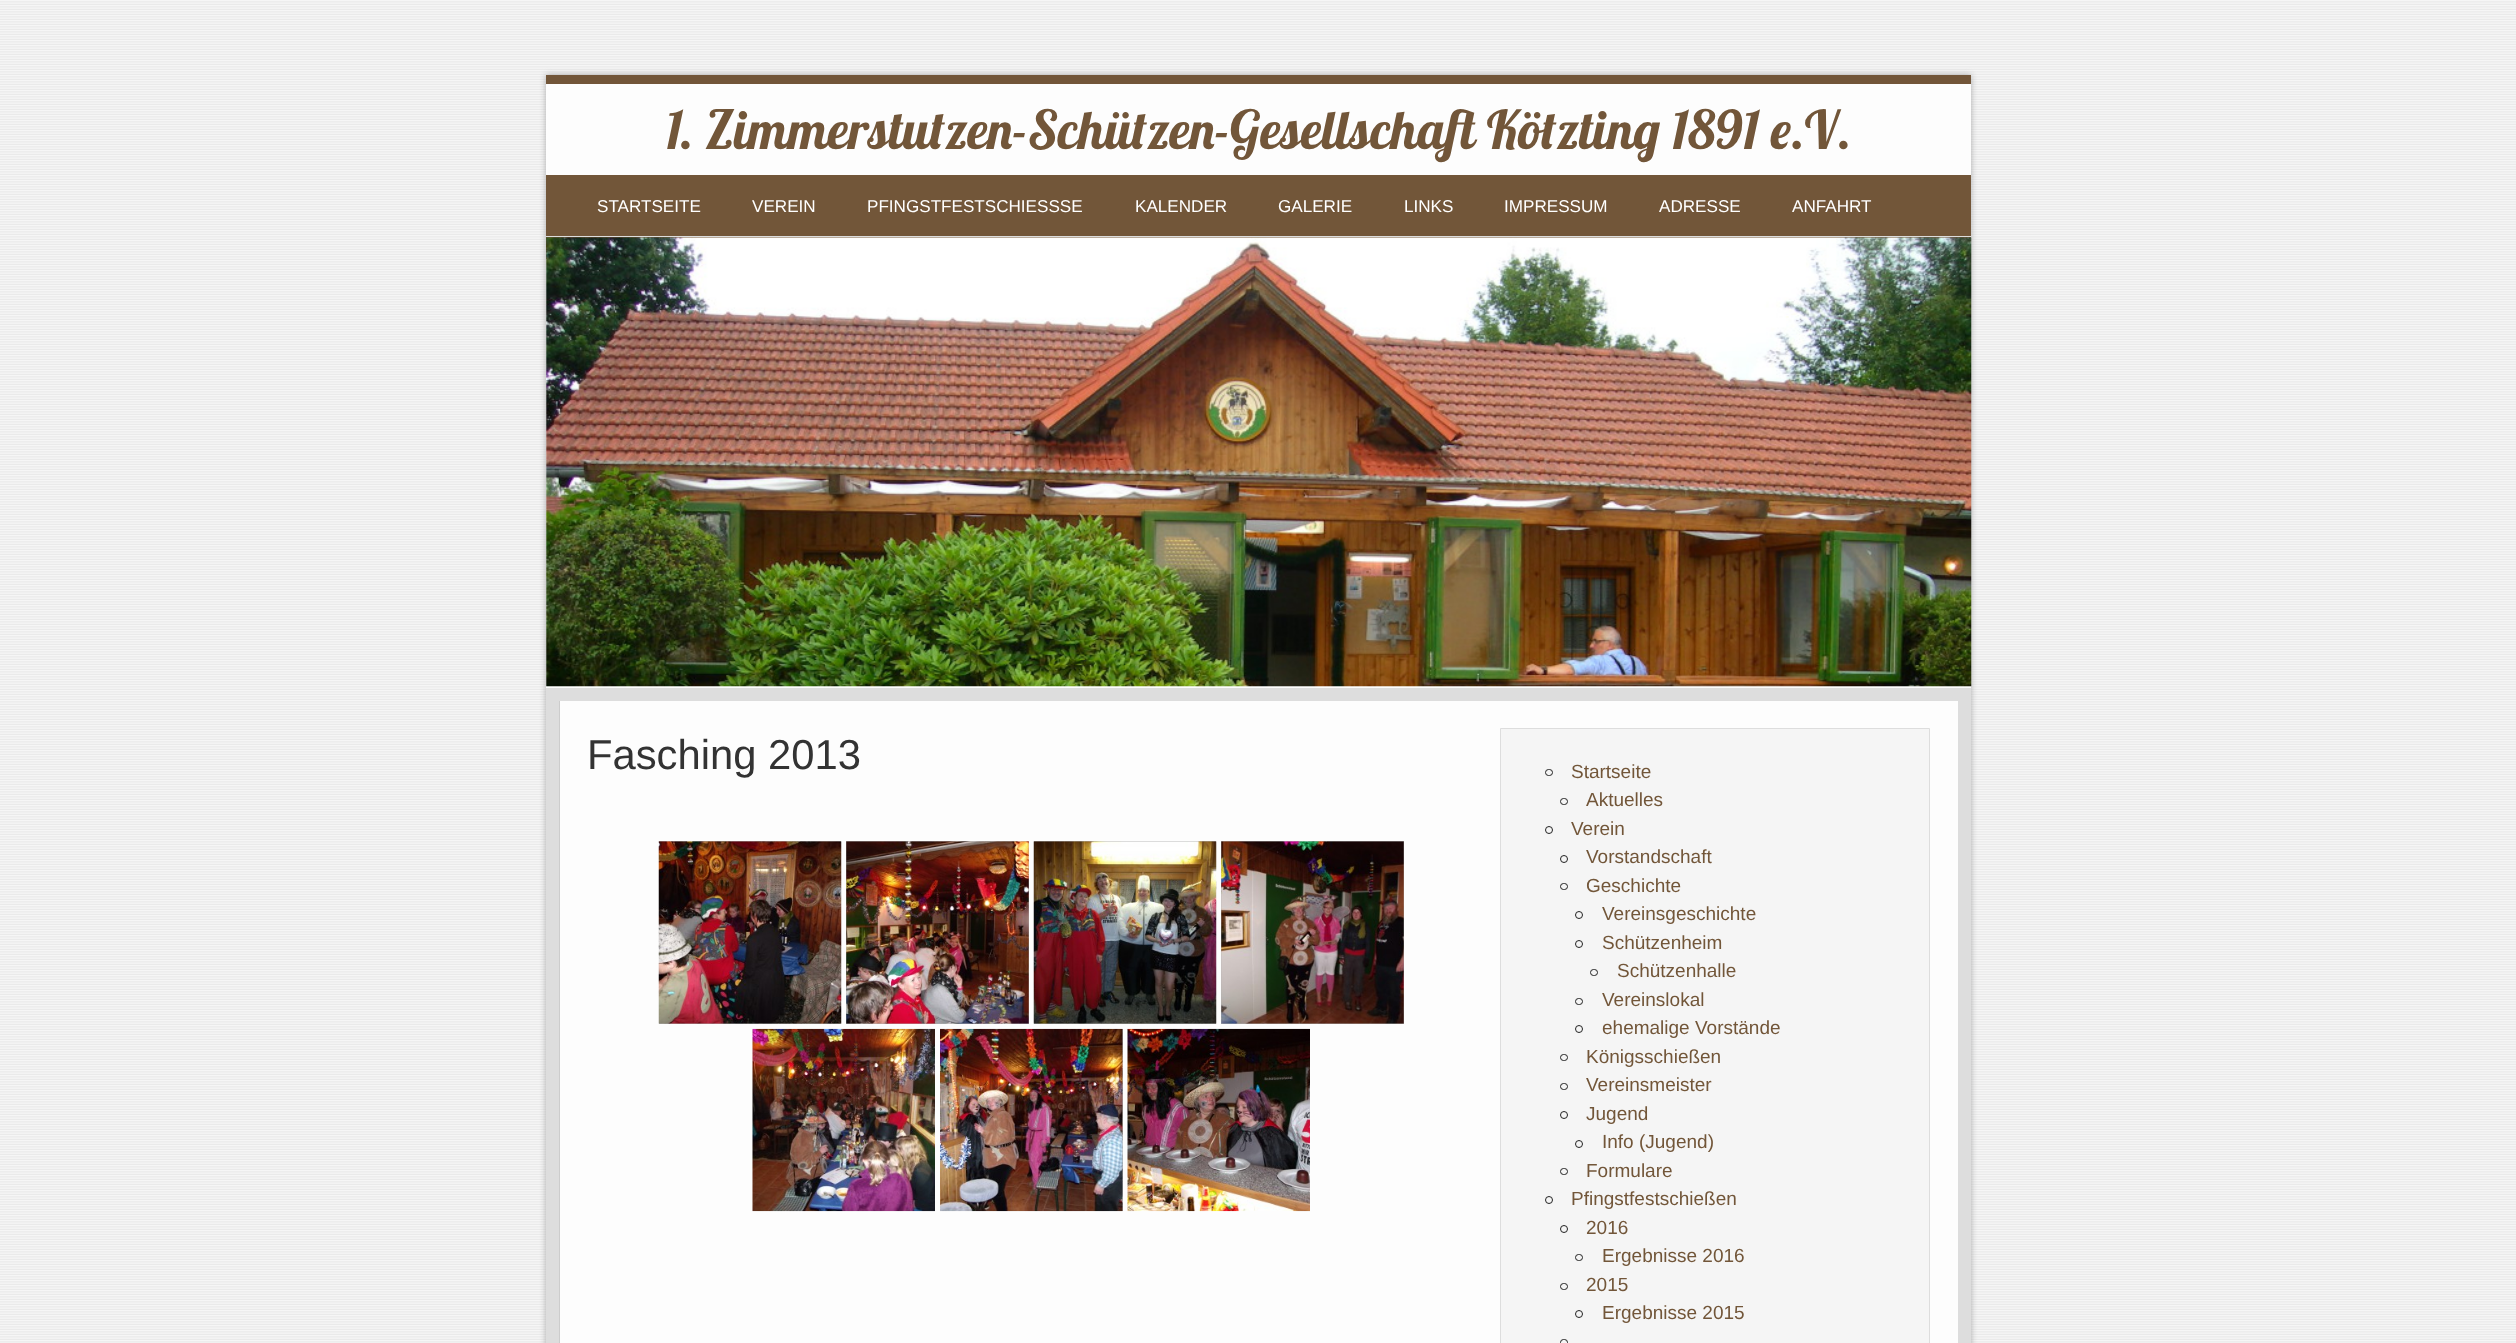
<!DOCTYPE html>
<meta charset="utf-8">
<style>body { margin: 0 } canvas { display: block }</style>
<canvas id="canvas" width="2516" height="1343"></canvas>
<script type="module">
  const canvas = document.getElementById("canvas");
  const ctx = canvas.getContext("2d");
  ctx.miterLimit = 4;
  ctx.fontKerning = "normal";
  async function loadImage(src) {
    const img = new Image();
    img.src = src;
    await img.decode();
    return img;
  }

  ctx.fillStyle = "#ffffff";
  ctx.fillRect(0, 0, 2516, 1343);
  ctx.drawImage(await loadImage("img1.png"), 0, 0, 2516, 1343);
  ctx.fillStyle = "#aaaaaa";
  ctx.filter = "blur(3px)";
  ctx.beginPath();
  ctx.rect(546, 75, 1425, 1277);
  ctx.fill();
  ctx.filter = "none";
  ctx.fillStyle = "#fdfdfd";
  ctx.fillRect(546, 84, 1425, 1259);
  ctx.fillStyle = "#725639";
  ctx.fillRect(546, 75, 1425, 9);
  ctx.font = "53.25px Lobster";
  ctx.fillText("1. Zimmerstutzen-Schützen-Gesellschaft Kötzting 1891 e.V.", 666, 149);
  ctx.fillRect(546, 175, 1425, 61);
  ctx.font = "17.1px Liberation Sans";
  ctx.fillStyle = "#ffffff";
  ctx.fillText("STARTSEITE", 597, 212);
  ctx.fillText("VEREIN", 752, 212);
  ctx.fillText("PFINGSTFESTSCHIESSSE", 867, 212);
  ctx.fillText("KALENDER", 1135, 212);
  ctx.fillText("GALERIE", 1278, 212);
  ctx.fillText("LINKS", 1404, 212);
  ctx.fillText("IMPRESSUM", 1504, 212);
  ctx.fillText("ADRESSE", 1659, 212);
  ctx.fillText("ANFAHRT", 1792, 212);
  ctx.fillStyle = "#dddddd";
  ctx.fillRect(546, 236, 1425, 1);
  ctx.fillStyle = "#725639";
  ctx.fillRect(546, 237, 1425, 22);
  ctx.drawImage(await loadImage("img2.png"), 546, 237, 1426, 450);
  ctx.strokeStyle = "#cccccc";
  ctx.strokeRect(559.5, 700.5, 1399, 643);
  ctx.strokeStyle = "#dddddd";
  ctx.lineWidth = 13;
  ctx.strokeRect(552.5, 694.5, 1412, 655);
  ctx.font = "41.75px Liberation Sans";
  ctx.fillStyle = "#333333";
  ctx.fillText("Fasching 2013", 587, 769);
  ctx.fillStyle = "#b1b1b1";
  ctx.fillRect(659, 841, 182, 183);
  ctx.drawImage(await loadImage("img3.png"), 658, 841, 184, 183);
  ctx.fillRect(846, 841, 183, 183);
  ctx.drawImage(await loadImage("img4.png"), 846, 841, 183, 183);
  ctx.fillRect(1034, 841, 182, 183);
  ctx.drawImage(await loadImage("img5.png"), 1033, 841, 184, 183);
  ctx.fillRect(1221, 841, 183, 183);
  ctx.drawImage(await loadImage("img6.png"), 1221, 841, 183, 183);
  ctx.drawImage(await loadImage("img7.png"), 752, 1028, 183, 184);
  ctx.fillRect(1122, 1029, 1, 182);
  ctx.drawImage(await loadImage("img8.png"), 940, 1028, 183, 184);
  ctx.drawImage(await loadImage("img9.png"), 1127, 1028, 183, 184);
  ctx.fillStyle = "#f5f5f5";
  ctx.beginPath();
  ctx.rect(1500.5, 728.5, 429, 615);
  ctx.fill();
  ctx.lineWidth = 1;
  ctx.stroke();
  ctx.beginPath();
  ctx.roundRect(1545.5, 769.5, 7, 6, 3);
  ctx.strokeStyle = "#222222";
  ctx.stroke();
  ctx.font = "19px Liberation Sans";
  ctx.fillStyle = "#725639";
  ctx.fillText("Startseite", 1571, 778);
  ctx.beginPath();
  ctx.roundRect(1560.5, 798.5, 7, 6, 3);
  ctx.stroke();
  ctx.fillText("Aktuelles", 1586, 806);
  ctx.beginPath();
  ctx.arc(1549, 830, 3.5, 0, Math.PI * 2);
  ctx.stroke();
  ctx.fillText("Verein", 1571, 835);
  ctx.beginPath();
  ctx.arc(1564, 859, 3.5, 0, Math.PI * 2);
  ctx.stroke();
  ctx.fillText("Vorstandschaft", 1586, 863);
  ctx.beginPath();
  ctx.roundRect(1560.5, 883.5, 7, 6, 3);
  ctx.stroke();
  ctx.fillText("Geschichte", 1586, 892);
  ctx.beginPath();
  ctx.arc(1579, 915, 3.5, 0, Math.PI * 2);
  ctx.stroke();
  ctx.fillText("Vereinsgeschichte", 1602, 920);
  ctx.beginPath();
  ctx.arc(1579, 944, 3.5, 0, Math.PI * 2);
  ctx.stroke();
  ctx.fillText("Schützenheim", 1602, 949);
  ctx.beginPath();
  ctx.roundRect(1590.5, 969.5, 7, 6, 3);
  ctx.stroke();
  ctx.fillText("Schützenhalle", 1617, 977);
  ctx.beginPath();
  ctx.roundRect(1575.5, 998.5, 7, 6, 3);
  ctx.stroke();
  ctx.fillText("Vereinslokal", 1602, 1006);
  ctx.beginPath();
  ctx.arc(1579, 1029, 3.5, 0, Math.PI * 2);
  ctx.stroke();
  ctx.fillText("ehemalige Vorstände", 1602, 1034);
  ctx.beginPath();
  ctx.roundRect(1560.5, 1054.5, 7, 6, 3);
  ctx.stroke();
  ctx.fillText("Königsschießen", 1586, 1063);
  ctx.beginPath();
  ctx.roundRect(1560.5, 1083.5, 7, 6, 3);
  ctx.stroke();
  ctx.fillText("Vereinsmeister", 1586, 1091);
  ctx.beginPath();
  ctx.arc(1564, 1115, 3.5, 0, Math.PI * 2);
  ctx.stroke();
  ctx.fillText("Jugend", 1586, 1120);
  ctx.beginPath();
  ctx.arc(1579, 1144, 3.5, 0, Math.PI * 2);
  ctx.stroke();
  ctx.fillText("Info (Jugend)", 1602, 1148);
  ctx.beginPath();
  ctx.roundRect(1560.5, 1168.5, 7, 6, 3);
  ctx.stroke();
  ctx.fillText("Formulare", 1586, 1177);
  ctx.beginPath();
  ctx.arc(1549, 1200, 3.5, 0, Math.PI * 2);
  ctx.stroke();
  ctx.fillText("Pfingstfestschießen", 1571, 1205);
  ctx.beginPath();
  ctx.arc(1564, 1229, 3.5, 0, Math.PI * 2);
  ctx.stroke();
  ctx.fillText("2016", 1586, 1234);
  ctx.beginPath();
  ctx.roundRect(1575.5, 1254.5, 7, 6, 3);
  ctx.stroke();
  ctx.fillText("Ergebnisse 2016", 1602, 1262);
  ctx.beginPath();
  ctx.roundRect(1560.5, 1283.5, 7, 6, 3);
  ctx.stroke();
  ctx.fillText("2015", 1586, 1291);
  ctx.beginPath();
  ctx.arc(1579, 1314, 3.5, 0, Math.PI * 2);
  ctx.stroke();
  ctx.fillText("Ergebnisse 2015", 1602, 1319);
  ctx.beginPath();
  ctx.roundRect(1560.5, 1339.5, 7, 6, 3);
  ctx.stroke();
</script>
